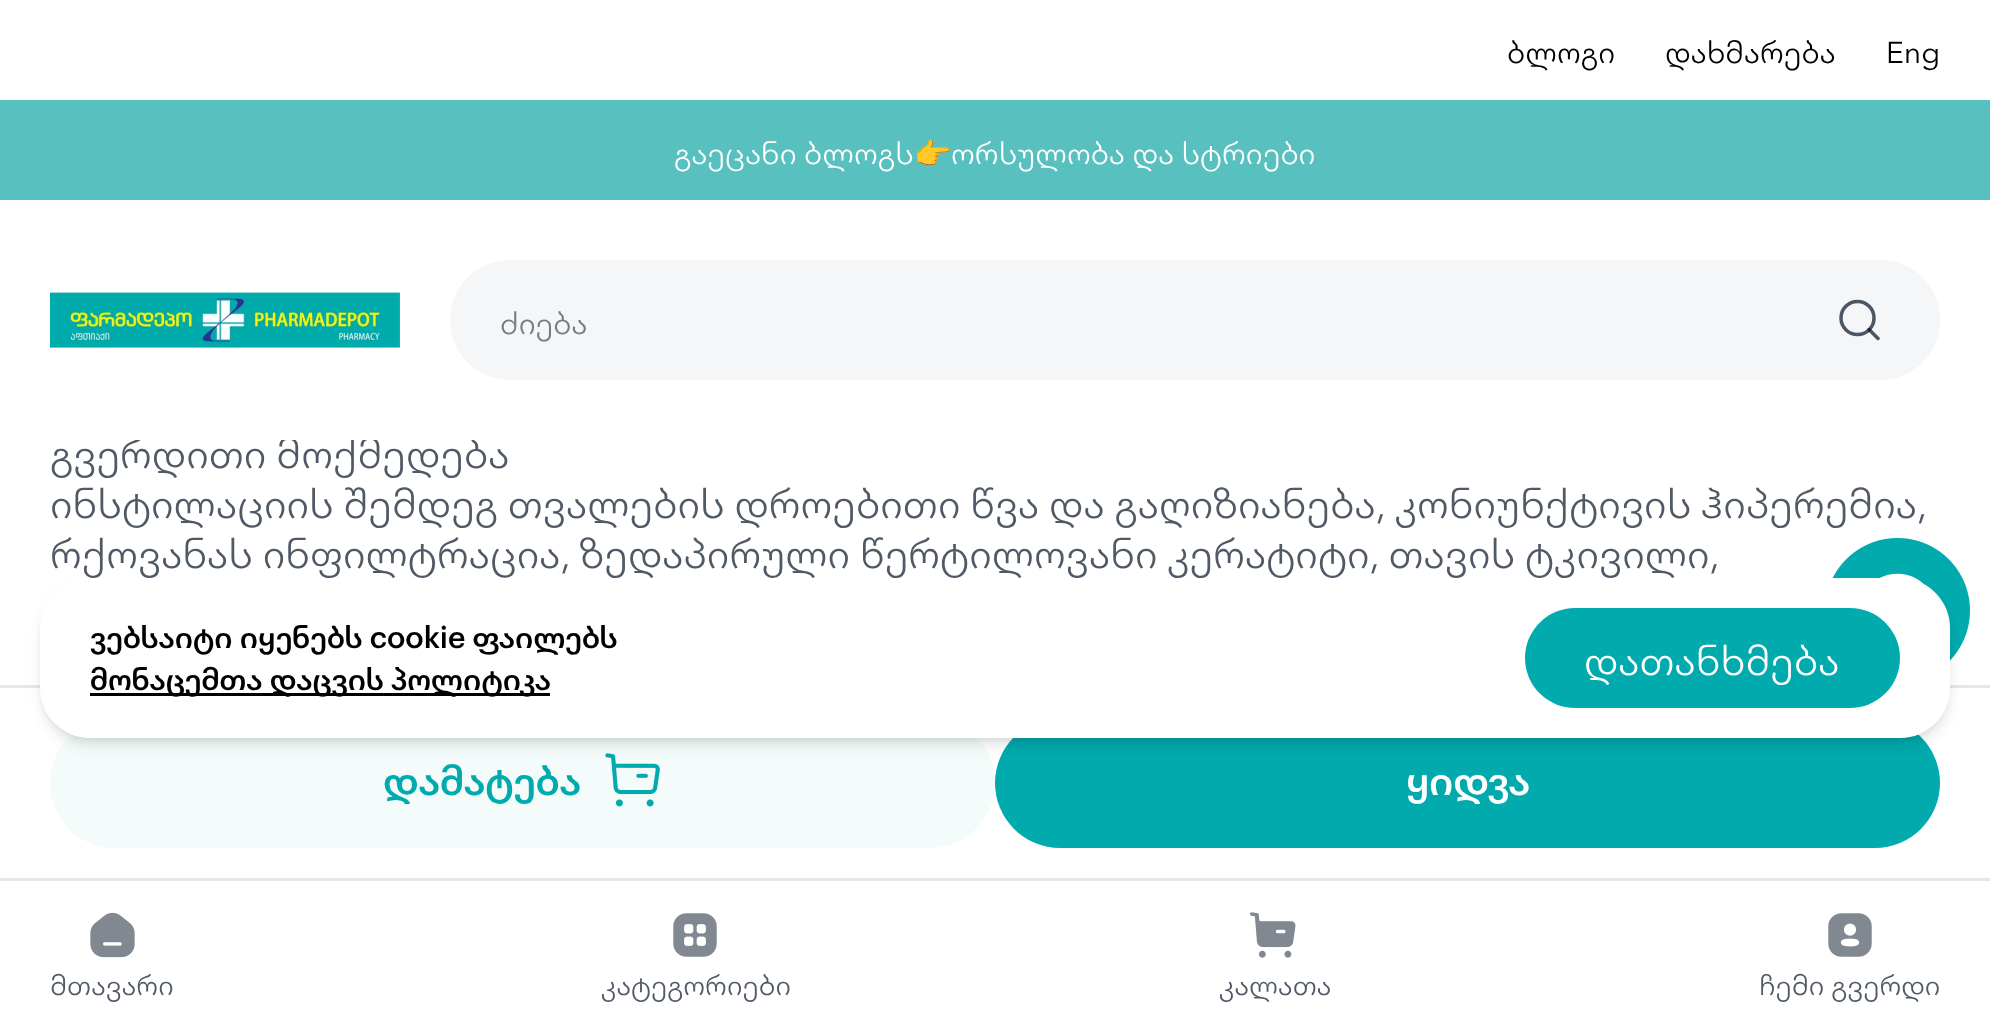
<!DOCTYPE html>
<meta charset="utf-8">
<style>body { margin: 0 } canvas { display: block }</style>
<canvas id="canvas" width="1990" height="1026"></canvas>
<script type="module">
  const canvas = document.getElementById("canvas");
  const ctx = canvas.getContext("2d");
  ctx.miterLimit = 4;
  ctx.fontKerning = "normal";
  async function loadImage(src) {
    const img = new Image();
    img.src = src;
    await img.decode();
    return img;
  }

  ctx.fillStyle = "#ffffff";
  ctx.fillRect(0, 0, 1990, 1026);
  ctx.font = "40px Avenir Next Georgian";
  ctx.fillStyle = "#505966";
  ctx.fillText("გვერდითი მოქმედება", 50, 468);
  ctx.fillStyle = "#ffffff";
  ctx.beginPath();
  ctx.roundRect(0, 0, 1990, 440, [0, 0, 100, 100]);
  ctx.fill();
  ctx.font = "30px Avenir Next Georgian";
  ctx.fillStyle = "#000000";
  ctx.fillText("ბლოგი", 1507, 63);
  ctx.fillText("დახმარება", 1665, 63);
  ctx.fillText("Eng", 1886, 63);
  ctx.fillStyle = "#59c0c0";
  ctx.fillRect(0, 100, 1990, 100);
  ctx.fillStyle = "#ffffff";
  ctx.fillText("გაეცანი ბლოგს", 674, 164);
  ctx.font = "30px Noto Color Emoji";
  ctx.fillText("👉", 914, 164);
  ctx.font = "30px Avenir Next Georgian";
  ctx.fillText("ორსულობა და სტრიები", 951, 164);
  ctx.drawImage(await loadImage("img1.png"), 50, 292, 350, 56);
  ctx.fillStyle = "#f4f6f8";
  ctx.beginPath();
  ctx.roundRect(450, 260, 1490, 120, 60);
  ctx.fill();
  ctx.fillStyle = "#7a7b7c";
  ctx.fillText("ძიება", 500, 334);
  ctx.beginPath();
  ctx.arc(1857.5, 318, 16.5, 0, Math.PI * 2);
  ctx.strokeStyle = "#4d5664";
  ctx.lineWidth = 3.5;
  ctx.stroke();
  ctx.beginPath();
  ctx.moveTo(1878, 338.5);
  ctx.lineTo(1869, 329.5);
  ctx.strokeStyle = "rgba(5, 18, 36, 0.7)";
  ctx.lineCap = "round";
  ctx.lineJoin = "round";
  ctx.stroke();
  ctx.wordSpacing = "-0.25px";
  ctx.font = "40px Avenir Next Georgian";
  ctx.fillStyle = "#505966";
  ctx.fillText("ინსტილაციის შემდეგ თვალების დროებითი წვა და გაღიზიანება, კონიუნქტივის ჰიპერემია,", 50, 518);
  ctx.fillText("რქოვანას ინფილტრაცია, ზედაპირული წერტილოვანი კერატიტი, თავის ტკივილი,", 50, 568);
  ctx.fillStyle = "#e6e7e9";
  ctx.fillRect(0, 685, 1990, 3);
  ctx.fillStyle = "#f3fbfb";
  ctx.beginPath();
  ctx.roundRect(50, 718, 945, 130, 65);
  ctx.fill();
  ctx.wordSpacing = "0px";
  ctx.font = "500 40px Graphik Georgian";
  ctx.fillStyle = "#00aaad";
  ctx.fillText("დამატება", 383, 795);
  ctx.drawImage(await loadImage("img2.png"), 605, 753, 55, 54);
  ctx.beginPath();
  ctx.roundRect(995, 718, 945, 130, 65);
  ctx.fill();
  ctx.fillStyle = "#ffffff";
  ctx.fillText("ყიდვა", 1406, 795);
  ctx.drawImage(await loadImage("img3.png"), 1832, 538, 138, 123);
  ctx.fillStyle = "rgba(0, 0, 0, 0.1)";
  ctx.filter = "blur(5px)";
  ctx.beginPath();
  ctx.roundRect(45, 588, 1900, 150, 45);
  ctx.fill();
  ctx.filter = "none";
  ctx.filter = "blur(7.5px)";
  ctx.beginPath();
  ctx.roundRect(43, 590, 1905, 155, 48);
  ctx.fill();
  ctx.filter = "none";
  ctx.fillStyle = "#ffffff";
  ctx.beginPath();
  ctx.roundRect(40, 578, 1910, 160, 50);
  ctx.fill();
  ctx.font = "500 30px Graphik Georgian";
  ctx.fillStyle = "#000000";
  ctx.fillText("ვებსაიტი იყენებს cookie ფაილებს", 90, 648);
  ctx.fillRect(90, 693, 460, 3);
  ctx.fillText("მონაცემთა დაცვის პოლიტიკა", 90, 690);
  ctx.fillStyle = "#00aaad";
  ctx.beginPath();
  ctx.roundRect(1525, 608, 375, 100, 50);
  ctx.fill();
  ctx.font = "40px Avenir Next Georgian";
  ctx.fillStyle = "#ffffff";
  ctx.fillText("დათანხმება", 1584, 675);
  ctx.fillStyle = "#e6e7e9";
  ctx.fillRect(0, 878, 1990, 3);
  ctx.drawImage(await loadImage("img4.png"), 90, 912, 45, 46);
  ctx.font = "27.5px Avenir Next Georgian";
  ctx.fillStyle = "#505966";
  ctx.fillText("მთავარი", 50, 995);
  ctx.drawImage(await loadImage("img5.png"), 673, 913, 44, 44);
  ctx.fillText("კატეგორიები", 601, 995);
  ctx.drawImage(await loadImage("img6.png"), 1250, 912, 46, 46);
  ctx.fillText("კალათა", 1219, 995);
  ctx.drawImage(await loadImage("img7.png"), 1828, 913, 44, 44);
  ctx.fillText("ჩემი გვერდი", 1759, 995);
</script>
